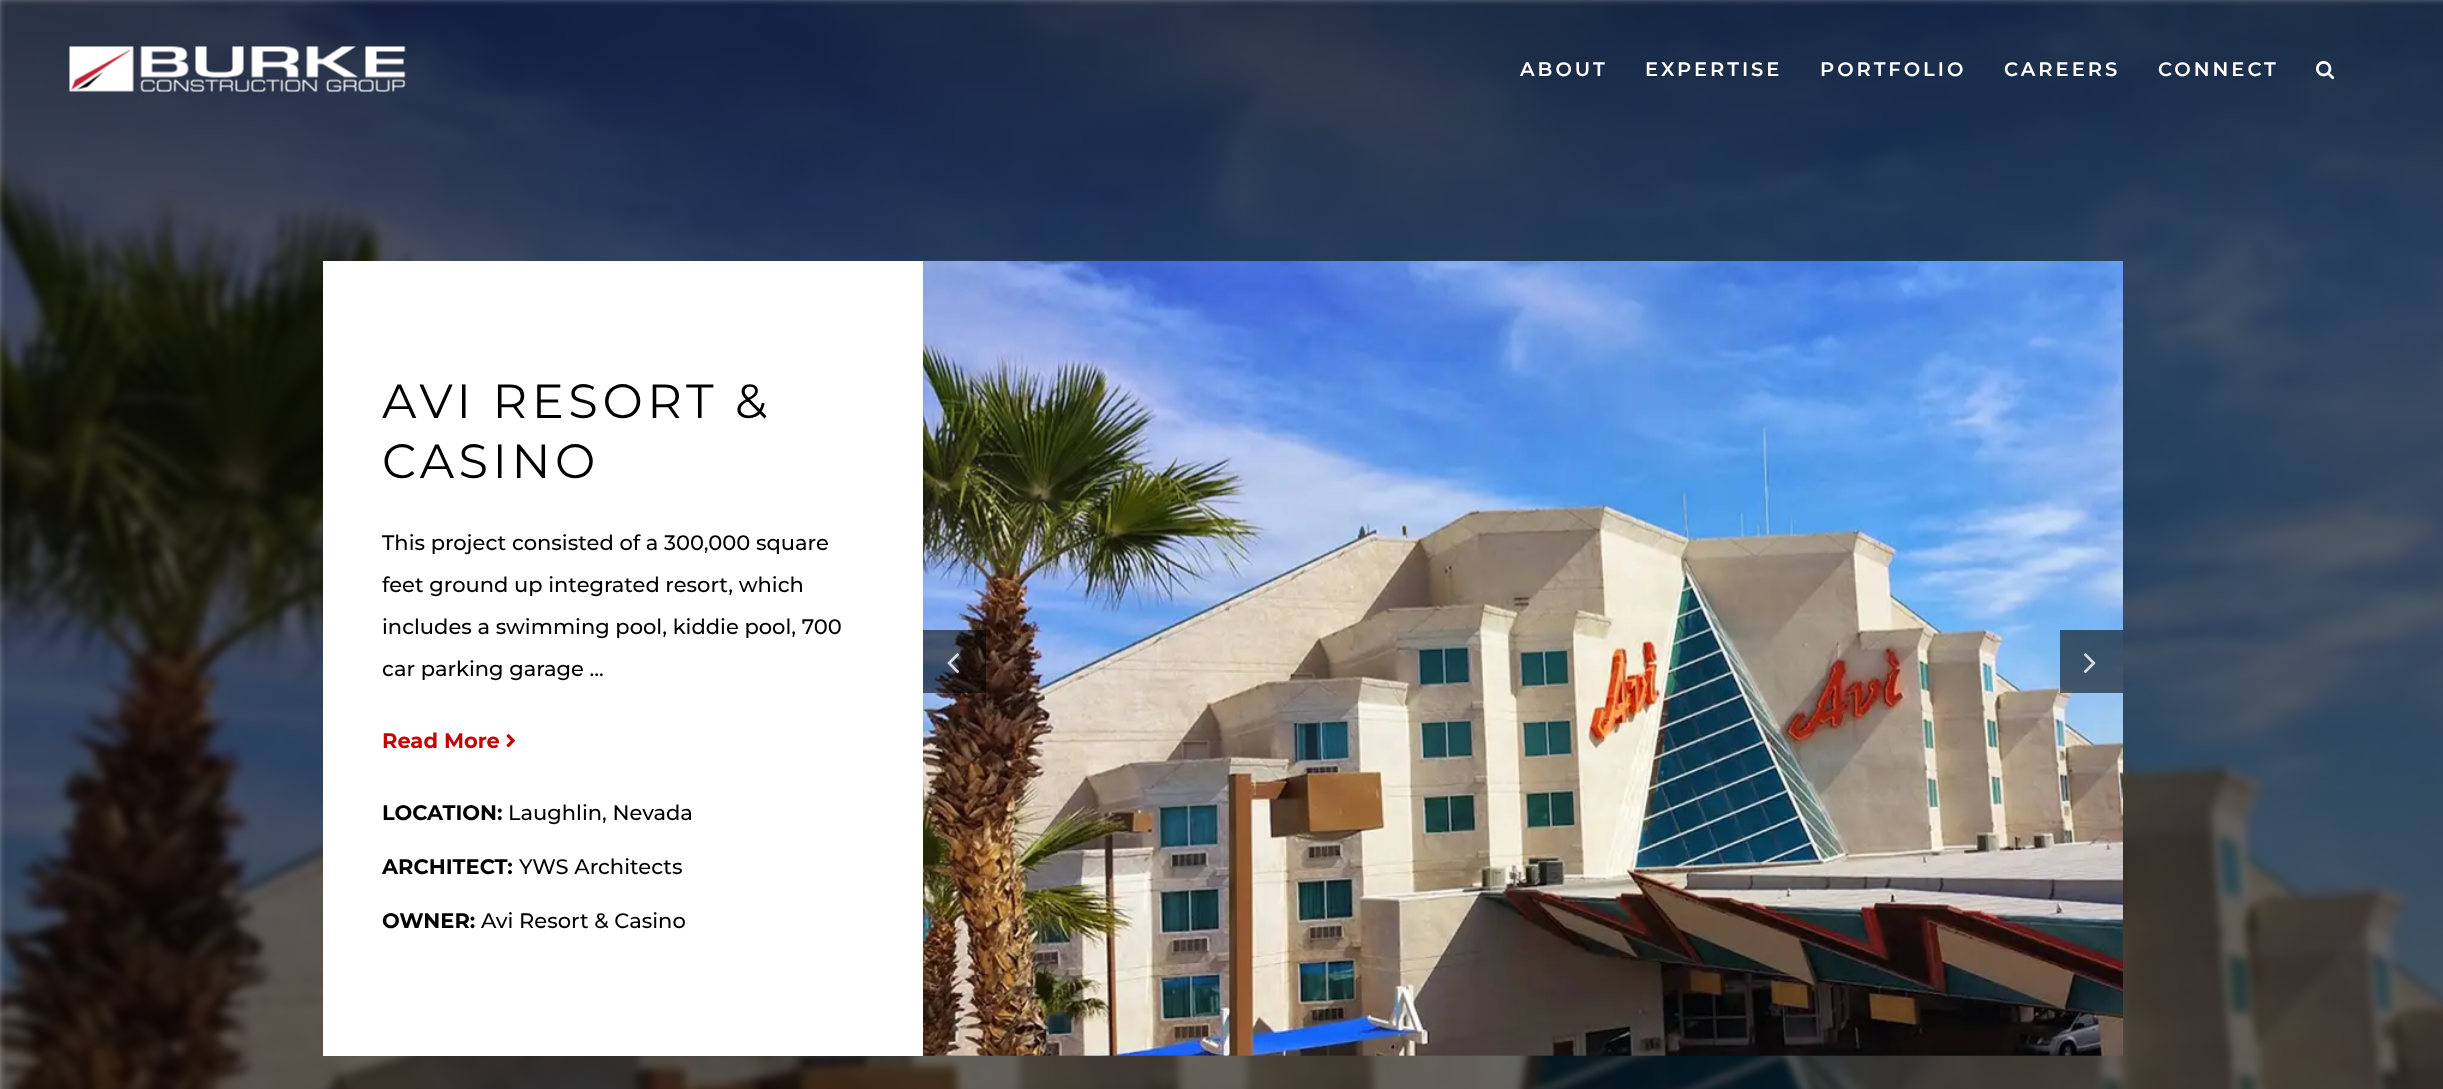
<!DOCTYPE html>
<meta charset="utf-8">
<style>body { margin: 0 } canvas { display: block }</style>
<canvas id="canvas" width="2443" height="1089"></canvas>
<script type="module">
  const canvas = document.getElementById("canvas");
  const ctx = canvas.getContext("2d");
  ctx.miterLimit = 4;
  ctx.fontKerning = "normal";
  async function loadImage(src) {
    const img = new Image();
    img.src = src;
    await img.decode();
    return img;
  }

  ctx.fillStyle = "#ffffff";
  ctx.fillRect(0, 0, 2443, 1089);
  ctx.drawImage(await loadImage("img1.png"), 0, 0, 2443, 1089);
  ctx.drawImage(await loadImage("img2.png"), 69, 46, 337, 46);
  ctx.letterSpacing = "3px";
  ctx.font = "600 19.5px Montserrat";
  ctx.fillText("ABOUT", 1520, 76);
  ctx.fillText("EXPERTISE", 1645, 76);
  ctx.fillText("PORTFOLIO", 1820, 76);
  ctx.fillText("CAREERS", 2004, 76);
  ctx.fillText("CONNECT", 2158, 76);
  ctx.drawImage(await loadImage("img3.png"), 2316, 61, 19, 19);
  ctx.fillRect(323, 261, 600, 795);
  ctx.letterSpacing = "4.5px";
  ctx.font = "48px Montserrat";
  ctx.fillStyle = "#000000";
  ctx.fillText("AVI RESORT &", 382, 418);
  ctx.fillText("CASINO", 382, 478);
  ctx.letterSpacing = "0px";
  ctx.font = "500 21px Montserrat";
  ctx.fillText("This project consisted of a 300,000 square", 382, 550);
  ctx.fillText("feet ground up integrated resort, which", 382, 592);
  ctx.fillText("includes a swimming pool, kiddie pool, 700", 382, 634);
  ctx.fillText("car parking garage ...", 382, 676);
  ctx.font = "bold 21px Montserrat";
  ctx.fillStyle = "#c80000";
  ctx.fillText("Read More", 382, 748);
  ctx.drawImage(await loadImage("img4.png"), 506, 734, 9, 14);
  ctx.fillStyle = "#000000";
  ctx.fillText("LOCATION:", 382, 820);
  ctx.font = "500 21px Montserrat";
  ctx.fillText("Laughlin, Nevada", 508, 820);
  ctx.font = "bold 21px Montserrat";
  ctx.fillText("ARCHITECT:", 382, 874);
  ctx.font = "500 21px Montserrat";
  ctx.fillText("YWS Architects", 519, 874);
  ctx.font = "bold 21px Montserrat";
  ctx.fillText("OWNER:", 382, 928);
  ctx.font = "500 21px Montserrat";
  ctx.fillText("Avi Resort & Casino", 481, 928);
  ctx.drawImage(await loadImage("img5.png"), 923, 261, 1200, 795);
  ctx.fillStyle = "rgba(0, 0, 0, 0.56)";
  ctx.fillRect(923, 630, 63, 63);
  ctx.drawImage(await loadImage("img6.png"), 947, 653, 12, 21);
  ctx.fillRect(2060, 630, 63, 63);
  ctx.drawImage(await loadImage("img7.png"), 2083, 653, 13, 21);
</script>
